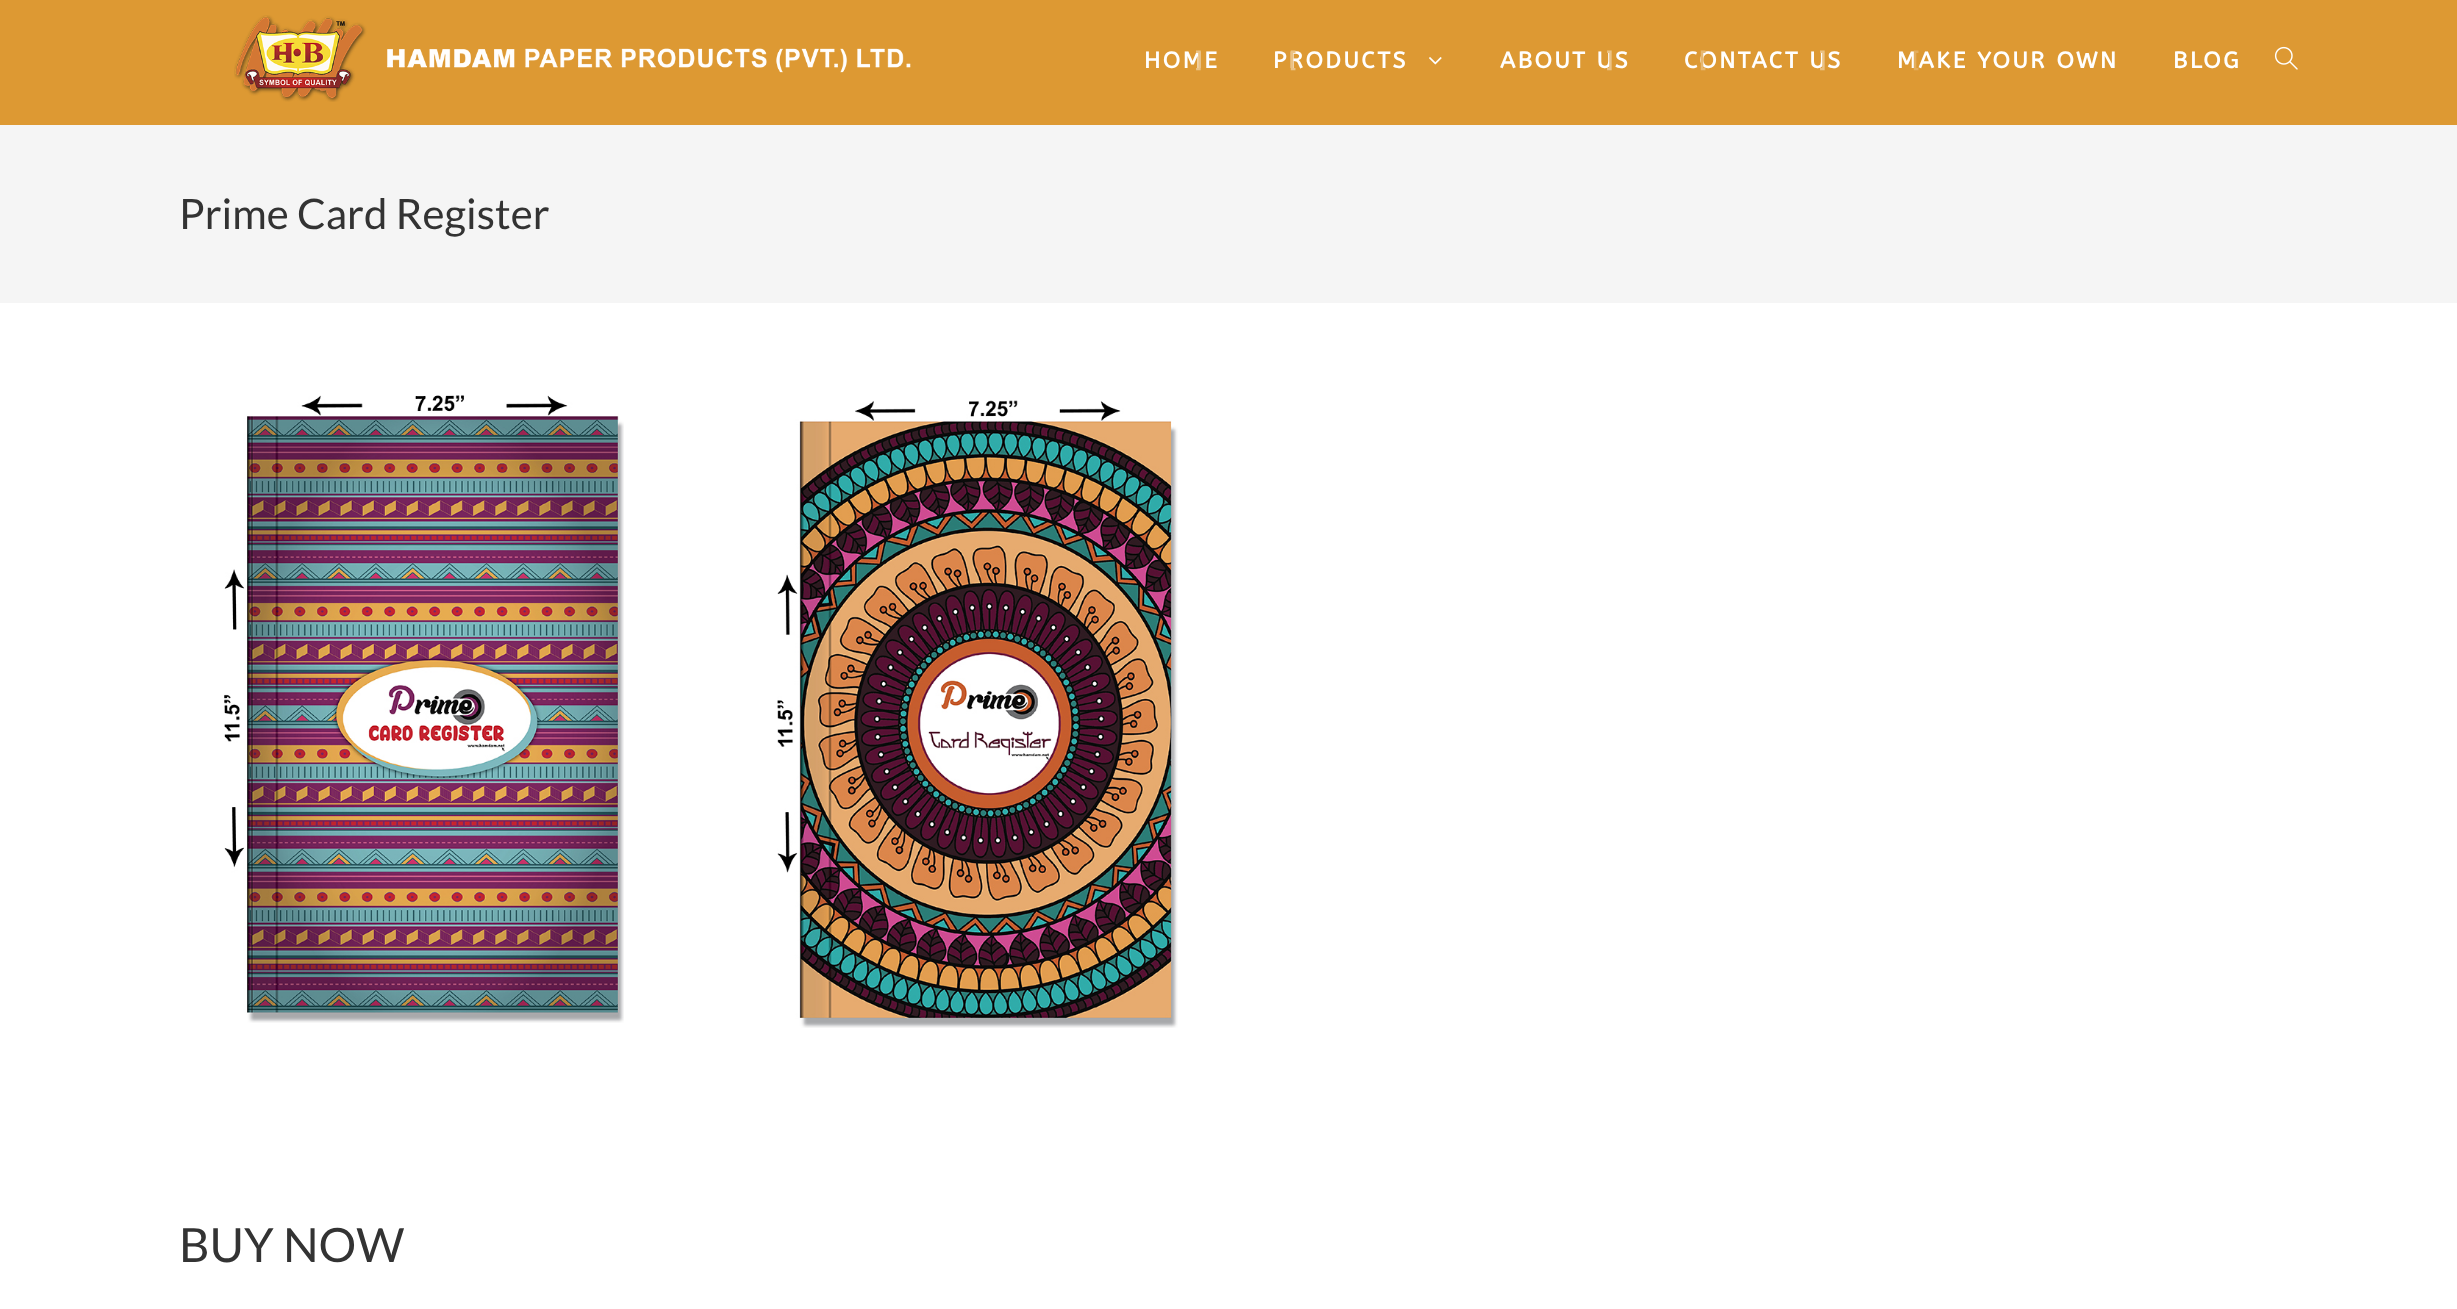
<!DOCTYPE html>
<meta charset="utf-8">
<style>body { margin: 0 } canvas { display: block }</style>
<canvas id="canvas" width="2457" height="1309"></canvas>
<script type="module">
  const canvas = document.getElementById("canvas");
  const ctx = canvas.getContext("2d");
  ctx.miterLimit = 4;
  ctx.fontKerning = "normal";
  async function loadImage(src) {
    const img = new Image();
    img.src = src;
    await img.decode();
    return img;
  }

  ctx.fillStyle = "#ffffff";
  ctx.fillRect(0, 0, 2457, 1309);
  ctx.fillStyle = "#dd9933";
  ctx.fillRect(0, 0, 2457, 125);
  ctx.drawImage(await loadImage("img1.png"), 234, 15, 677, 87);
  ctx.letterSpacing = "2.6px";
  ctx.font = "bold 22.75px ABeeZee";
  ctx.fillStyle = "#ffffff";
  ctx.fillText("HOME", 1144, 68);
  ctx.fillStyle = "#ebc284";
  ctx.fillText("]", 1195, 68);
  ctx.fillStyle = "#ffffff";
  ctx.fillText("PRODUCTS", 1273, 68);
  ctx.fillStyle = "#ebc284";
  ctx.fillText("[", 1289, 68);
  ctx.drawImage(await loadImage("img2.png"), 1429, 57, 13, 8);
  ctx.fillStyle = "#ffffff";
  ctx.fillText("ABOUT US", 1500, 68);
  ctx.fillStyle = "#ebc284";
  ctx.fillText("]", 1606, 68);
  ctx.fillStyle = "#ffffff";
  ctx.fillText("CONTACT US", 1684, 68);
  ctx.fillStyle = "#e7b872";
  ctx.fillText("[", 1699, 68);
  ctx.fillStyle = "#ebc284";
  ctx.fillText("]", 1819, 68);
  ctx.fillStyle = "#ffffff";
  ctx.fillText("MAKE YOUR OWN", 1897, 68);
  ctx.fillStyle = "#e4ae5e";
  ctx.fillText("[", 1912, 68);
  ctx.fillStyle = "#ffffff";
  ctx.fillText("BLOG", 2173, 68);
  ctx.drawImage(await loadImage("img3.png"), 2274, 46, 24, 24);
  ctx.fillStyle = "#f5f5f5";
  ctx.fillRect(0, 125, 2457, 178);
  ctx.letterSpacing = "0px";
  ctx.font = "42px Lato";
  ctx.fillStyle = "#333333";
  ctx.fillText("Prime Card Register", 179, 229);
  ctx.drawImage(await loadImage("img4.png"), 224, 395, 400, 628);
  ctx.drawImage(await loadImage("img5.png"), 777, 400, 401, 628);
  ctx.font = "47.25px Lato";
  ctx.fillText("BUY NOW", 179, 1262);
</script>
